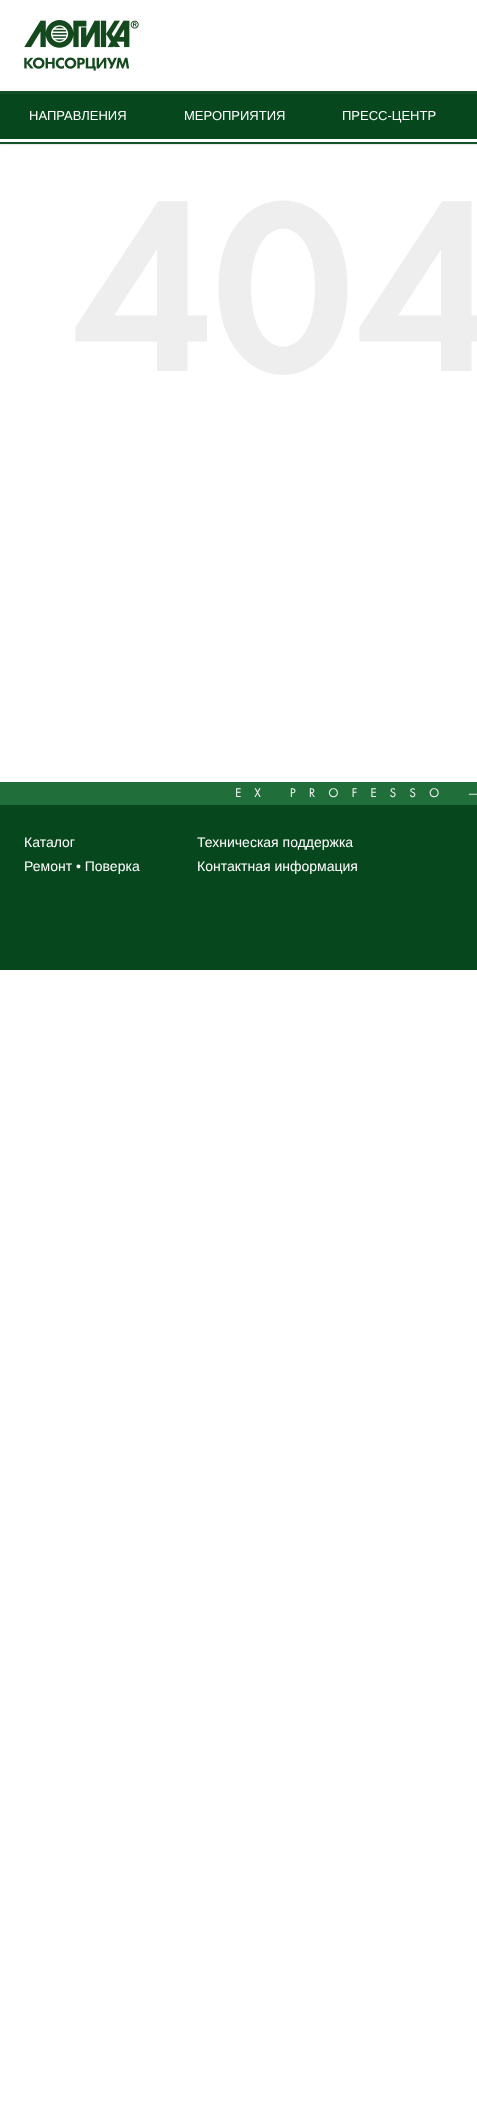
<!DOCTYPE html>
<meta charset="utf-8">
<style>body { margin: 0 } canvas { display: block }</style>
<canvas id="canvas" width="477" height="2105"></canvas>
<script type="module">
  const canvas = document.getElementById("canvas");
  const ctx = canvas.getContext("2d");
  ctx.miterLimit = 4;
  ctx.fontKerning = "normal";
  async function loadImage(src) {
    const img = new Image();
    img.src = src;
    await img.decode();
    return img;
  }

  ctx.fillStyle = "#ffffff";
  ctx.fillRect(0, 0, 477, 2105);
  ctx.drawImage(await loadImage("img1.png"), 24, 20, 115, 51);
  ctx.fillStyle = "rgba(0, 0, 0, 0.2)";
  ctx.filter = "blur(1px)";
  ctx.beginPath();
  ctx.rect(0, 93, 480, 51);
  ctx.fill();
  ctx.filter = "none";
  ctx.fillStyle = "#07471d";
  ctx.fillRect(0, 94, 477, 45);
  ctx.fillStyle = "#145029";
  ctx.fillRect(0, 91, 477, 3);
  ctx.font = "13px Liberation Sans";
  ctx.fillStyle = "#ffffff";
  ctx.fillText("НАПРАВЛЕНИЯ", 29, 120);
  ctx.fillText("МЕРОПРИЯТИЯ", 184, 120);
  ctx.fillText("ПРЕСС-ЦЕНТР", 342, 120);
  ctx.fillRect(0, 139, 477, 3);
  ctx.fillStyle = "#16522a";
  ctx.fillRect(0, 142, 477, 2);
  ctx.font = "600 250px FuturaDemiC";
  ctx.fillStyle = "#eeeeee";
  ctx.fillText("404", 70, 371);
  ctx.fillStyle = "#206e3a";
  ctx.fillRect(0, 782, 477, 23);
  ctx.letterSpacing = "13px";
  ctx.font = "13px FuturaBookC";
  ctx.fillStyle = "#f5f5f5";
  ctx.fillText("EX PROFESSO —", 235, 797);
  ctx.fillStyle = "#07471d";
  ctx.fillRect(0, 805, 477, 165);
  ctx.letterSpacing = "0px";
  ctx.font = "14px Liberation Sans";
  ctx.fillStyle = "#ffffff";
  ctx.fillText("Каталог", 24, 847);
  ctx.fillText("Ремонт • Поверка", 24, 871);
  ctx.fillText("Техническая поддержка", 197, 847);
  ctx.fillText("Контактная информация", 197, 871);
</script>
